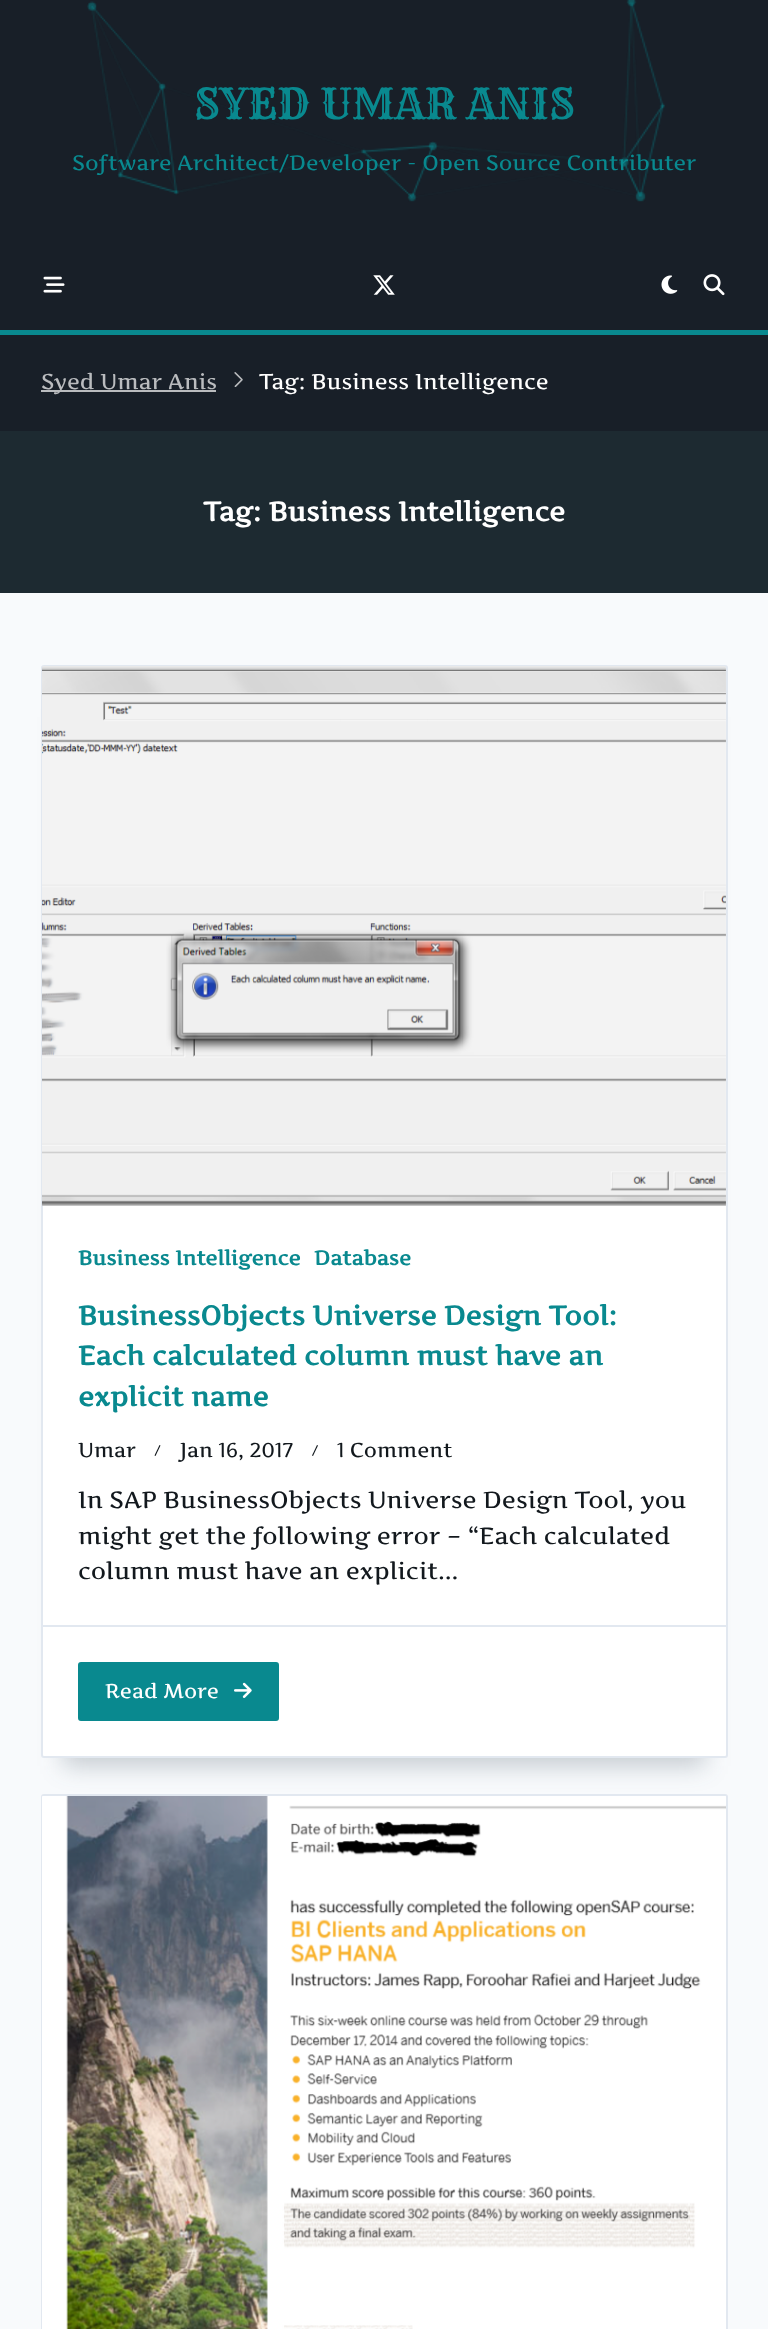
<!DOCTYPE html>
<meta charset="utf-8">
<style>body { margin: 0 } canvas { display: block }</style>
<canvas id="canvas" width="768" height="2329"></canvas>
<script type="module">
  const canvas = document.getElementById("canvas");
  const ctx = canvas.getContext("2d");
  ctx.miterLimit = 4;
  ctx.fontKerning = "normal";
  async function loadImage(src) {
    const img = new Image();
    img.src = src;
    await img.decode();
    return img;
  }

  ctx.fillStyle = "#f8fafc";
  ctx.fillRect(0, 0, 768, 2329);
  ctx.fillStyle = "#181f28";
  ctx.fillRect(0, 0, 768, 330);
  ctx.fillStyle = "#09898f";
  ctx.fillRect(0, 330, 768, 5);
  ctx.drawImage(await loadImage("img1.png"), 43, 276, 22, 17);
  ctx.drawImage(await loadImage("img2.png"), 373, 275, 22, 20);
  ctx.drawImage(await loadImage("img3.png"), 661, 275, 17, 19);
  ctx.drawImage(await loadImage("img4.png"), 703, 274, 22, 22);
  ctx.font = "42px Rye";
  ctx.fillText("SYED UMAR ANIS", 194, 119);
  ctx.font = "21px Artifika";
  ctx.fillText("Software Architect/Developer - Open Source Contributer", 72, 170);
  ctx.drawImage(await loadImage("img5.png"), 87, 0, 578, 202);
  ctx.fillStyle = "#181f28";
  ctx.fillRect(0, 335, 768, 96);
  ctx.fillStyle = "#babcbf";
  ctx.fillRect(41, 390, 175, 2);
  ctx.font = "21.6px Artifika";
  ctx.fillText("Syed Umar Anis", 41, 389);
  ctx.drawImage(await loadImage("img6.png"), 234, 372, 9, 15);
  ctx.fillStyle = "#ffffff";
  ctx.fillText("Tag: Business Intelligence", 259, 389);
  ctx.fillStyle = "#1d2a31";
  ctx.fillRect(0, 431, 768, 162);
  ctx.font = "bold 27px Artifika";
  ctx.fillStyle = "#ffffff";
  ctx.fillText("Tag: Business Intelligence", 203, 521);
  ctx.fillStyle = "rgba(44, 62, 80, 0.25)";
  ctx.filter = "blur(12px)";
  ctx.beginPath();
  ctx.rect(63, 717, 642, 1049);
  ctx.fill();
  ctx.filter = "none";
  ctx.fillStyle = "#ffffff";
  ctx.beginPath();
  ctx.roundRect(42, 666, 685, 1091, 2);
  ctx.fill();
  ctx.strokeStyle = "#e2e8f0";
  ctx.lineWidth = 2;
  ctx.stroke();
  ctx.drawImage(await loadImage("img7.png"), 42, 666, 684, 540);
  ctx.font = "bold 20.25px Artifika";
  ctx.fillStyle = "#09898f";
  ctx.fillText("Business Intelligence", 78, 1265);
  ctx.fillText("Database", 314, 1265);
  ctx.font = "bold 27px Artifika";
  ctx.fillText("BusinessObjects Universe Design Tool:", 78, 1325);
  ctx.fillText("Each calculated column must have an", 78, 1365);
  ctx.fillText("explicit name", 78, 1406);
  ctx.font = "20.25px Artifika";
  ctx.fillStyle = "#12181d";
  ctx.fillText("Umar", 78, 1457);
  ctx.beginPath();
  ctx.moveTo(154.5, 1455.5);
  ctx.lineTo(159.5, 1445);
  ctx.lineTo(160.5, 1445.5);
  ctx.lineTo(155.5, 1456);
  ctx.closePath();
  ctx.fill();
  ctx.fillText("Jan 16, 2017", 180, 1457);
  ctx.beginPath();
  ctx.moveTo(312, 1455.5);
  ctx.lineTo(317, 1445);
  ctx.lineTo(318, 1445.5);
  ctx.lineTo(313, 1456);
  ctx.closePath();
  ctx.fill();
  ctx.fillText("1 Comment", 337, 1457);
  ctx.font = "23.6px Artifika";
  ctx.fillText("In SAP BusinessObjects Universe Design Tool, you", 78, 1508);
  ctx.fillText("might get the following error – “Each calculated", 78, 1544);
  ctx.fillText("column must have an explicit...", 78, 1579);
  ctx.fillStyle = "#e2e8f0";
  ctx.fillRect(42, 1625, 684, 2);
  ctx.fillStyle = "#09898f";
  ctx.beginPath();
  ctx.roundRect(79, 1663, 199, 57, 2);
  ctx.fill();
  ctx.strokeStyle = "#09898f";
  ctx.stroke();
  ctx.font = "20.25px Artifika";
  ctx.fillStyle = "#ffffff";
  ctx.fillText("Read More", 105, 1698);
  ctx.drawImage(await loadImage("img8.png"), 234, 1682, 18, 16);
  ctx.beginPath();
  ctx.roundRect(42, 1795, 685, 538, 2);
  ctx.strokeStyle = "#e2e8f0";
  ctx.stroke();
  ctx.drawImage(await loadImage("img9.png"), 42, 1796, 684, 533);
</script>
